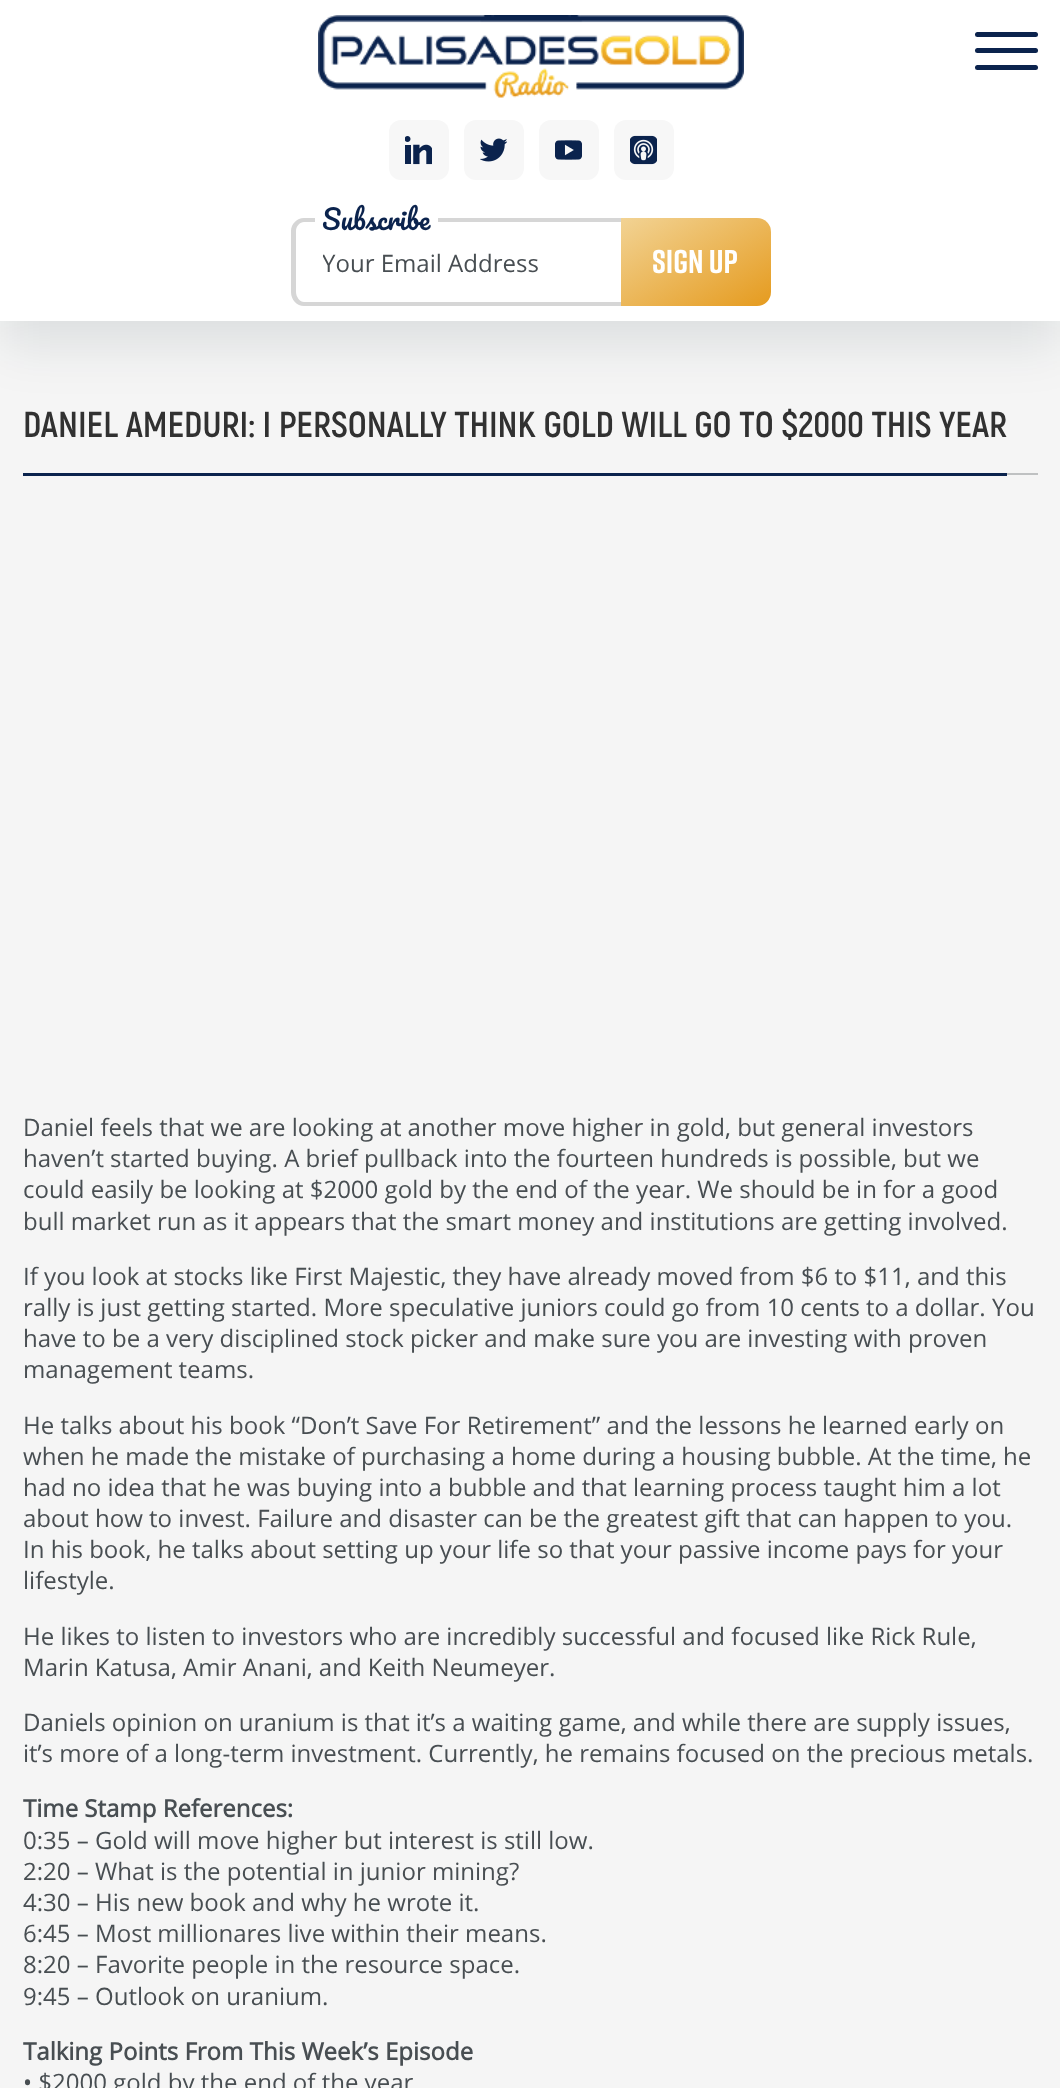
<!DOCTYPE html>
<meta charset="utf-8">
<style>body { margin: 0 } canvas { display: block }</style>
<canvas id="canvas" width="1060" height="2088"></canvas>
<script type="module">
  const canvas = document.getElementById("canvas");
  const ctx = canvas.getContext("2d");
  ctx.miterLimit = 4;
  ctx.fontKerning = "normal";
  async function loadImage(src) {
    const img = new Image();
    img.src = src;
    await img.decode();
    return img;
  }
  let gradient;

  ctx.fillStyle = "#f5f5f5";
  ctx.fillRect(0, 0, 1060, 2088);
  ctx.fillStyle = "rgba(0, 33, 41, 0.1)";
  ctx.filter = "blur(26px)";
  ctx.beginPath();
  ctx.rect(0, 23, 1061, 321);
  ctx.fill();
  ctx.filter = "none";
  ctx.fillStyle = "#ffffff";
  ctx.fillRect(0, 0, 1060, 321);
  ctx.drawImage(await loadImage("img1.png"), 318, 15, 426, 83);
  ctx.fillStyle = "#0b234d";
  ctx.beginPath();
  ctx.roundRect(975, 48, 63, 5, 2.5);
  ctx.fill();
  ctx.beginPath();
  ctx.roundRect(975, 32, 63, 5, 2.5);
  ctx.fill();
  ctx.beginPath();
  ctx.roundRect(975, 65, 63, 5, 2.5);
  ctx.fill();
  ctx.fillStyle = "#f7f7f7";
  ctx.beginPath();
  ctx.roundRect(389, 120, 60, 60, 12);
  ctx.fill();
  ctx.drawImage(await loadImage("img2.png"), 405, 136, 27, 29);
  ctx.beginPath();
  ctx.roundRect(464, 120, 60, 60, 12);
  ctx.fill();
  ctx.drawImage(await loadImage("img3.png"), 480, 138, 27, 24);
  ctx.beginPath();
  ctx.roundRect(539, 120, 60, 60, 12);
  ctx.fill();
  ctx.drawImage(await loadImage("img4.png"), 555, 140, 27, 20);
  ctx.beginPath();
  ctx.roundRect(614, 120, 60, 60, 12);
  ctx.fill();
  ctx.drawImage(await loadImage("img5.png"), 630, 135, 27, 30);
  ctx.fillStyle = "#d6d6d6";
  ctx.beginPath();
  ctx.moveTo(304, 218);
  ctx.lineTo(621, 218);
  ctx.lineTo(621, 306);
  ctx.lineTo(304, 306);
  ctx.bezierCurveTo(297, 306, 291, 300, 291, 292);
  ctx.lineTo(291, 231);
  ctx.bezierCurveTo(291, 224, 297, 218, 304, 218);
  ctx.closePath();
  ctx.moveTo(304, 222);
  ctx.lineTo(621, 222);
  ctx.lineTo(621, 302);
  ctx.lineTo(304, 302);
  ctx.bezierCurveTo(300, 302, 296, 297, 296, 292);
  ctx.lineTo(296, 231);
  ctx.bezierCurveTo(296, 226, 300, 222, 304, 222);
  ctx.closePath();
  ctx.fill("evenodd");
  ctx.fillStyle = "#ffffff";
  ctx.fillRect(315, 218, 123, 4);
  ctx.font = "27px Pacifico";
  ctx.fillStyle = "#0b234d";
  ctx.fillText("Subscribe", 322, 230);
  ctx.save();
  ctx.beginPath();
  ctx.rect(323, 246, 271, 32);
  ctx.clip();
  ctx.font = "24px Open Sans";
  ctx.fillStyle = "#484e52";
  ctx.fillText("Your Email Address", 322, 272);
  ctx.restore();
  gradient = ctx.createLinearGradient(658, 196, 734, 327);
  gradient.addColorStop(0, "#f2d394");
  gradient.addColorStop(1, "#e59b1f");
  ctx.fillStyle = gradient;
  ctx.beginPath();
  ctx.roundRect(621, 218, 150, 88, [0, 14, 14, 0]);
  ctx.fill();
  ctx.font = "bold 33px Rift";
  ctx.fillStyle = "#ffffff";
  ctx.fillText("SIGN UP", 652, 273);
  ctx.fillStyle = "#bfc1c2";
  ctx.fillRect(1007, 473, 31, 2);
  ctx.font = "bold 36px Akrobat";
  ctx.fillStyle = "#313131";
  ctx.fillText("DANIEL AMEDURI: I PERSONALLY THINK GOLD WILL GO TO $2000 THIS YEAR", 23, 437);
  ctx.fillStyle = "#0b234d";
  ctx.fillRect(23, 473, 984, 3);
  ctx.font = "24px Open Sans";
  ctx.fillStyle = "#484e52";
  ctx.fillText("Daniel feels that we are looking at another move higher in gold, but general investors", 23, 1136);
  ctx.fillText("haven’t started buying. A brief pullback into the fourteen hundreds is possible, but we", 23, 1167);
  ctx.fillText("could easily be looking at $2000 gold by the end of the year. We should be in for a good", 23, 1198);
  ctx.fillText("bull market run as it appears that the smart money and institutions are getting involved.", 23, 1230);
  ctx.fillText("If you look at stocks like First Majestic, they have already moved from $6 to $11, and this", 23, 1285);
  ctx.fillText("rally is just getting started. More speculative juniors could go from 10 cents to a dollar. You", 23, 1316);
  ctx.fillText("have to be a very disciplined stock picker and make sure you are investing with proven", 23, 1347);
  ctx.fillText("management teams.", 23, 1378);
  ctx.fillText("He talks about his book “Don’t Save For Retirement” and the lessons he learned early on", 23, 1434);
  ctx.fillText("when he made the mistake of purchasing a home during a housing bubble. At the time, he", 23, 1465);
  ctx.fillText("had no idea that he was buying into a bubble and that learning process taught him a lot", 23, 1496);
  ctx.fillText("about how to invest. Failure and disaster can be the greatest gift that can happen to you.", 23, 1527);
  ctx.fillText("In his book, he talks about setting up your life so that your passive income pays for your", 23, 1558);
  ctx.fillText("lifestyle.", 23, 1589);
  ctx.fillText("He likes to listen to investors who are incredibly successful and focused like Rick Rule,", 23, 1645);
  ctx.fillText("Marin Katusa, Amir Anani, and Keith Neumeyer.", 23, 1676);
  ctx.fillText("Daniels opinion on uranium is that it’s a waiting game, and while there are supply issues,", 23, 1731);
  ctx.fillText("it’s more of a long-term investment. Currently, he remains focused on the precious metals.", 23, 1762);
  ctx.font = "bold 24px Open Sans";
  ctx.fillText("Time Stamp References:", 23, 1817);
  ctx.font = "24px Open Sans";
  ctx.fillText("0:35 – Gold will move higher but interest is still low.", 23, 1849);
  ctx.fillText("2:20 – What is the potential in junior mining?", 23, 1880);
  ctx.fillText("4:30 – His new book and why he wrote it.", 23, 1911);
  ctx.fillText("6:45 – Most millionares live within their means.", 23, 1942);
  ctx.fillText("8:20 – Favorite people in the resource space.", 23, 1973);
  ctx.fillText("9:45 – Outlook on uranium.", 23, 2005);
  ctx.font = "bold 24px Open Sans";
  ctx.fillText("Talking Points From This Week’s Episode", 23, 2060);
  ctx.font = "24px Open Sans";
  ctx.fillText("• $2000 gold by the end of the year", 23, 2091);
</script>
